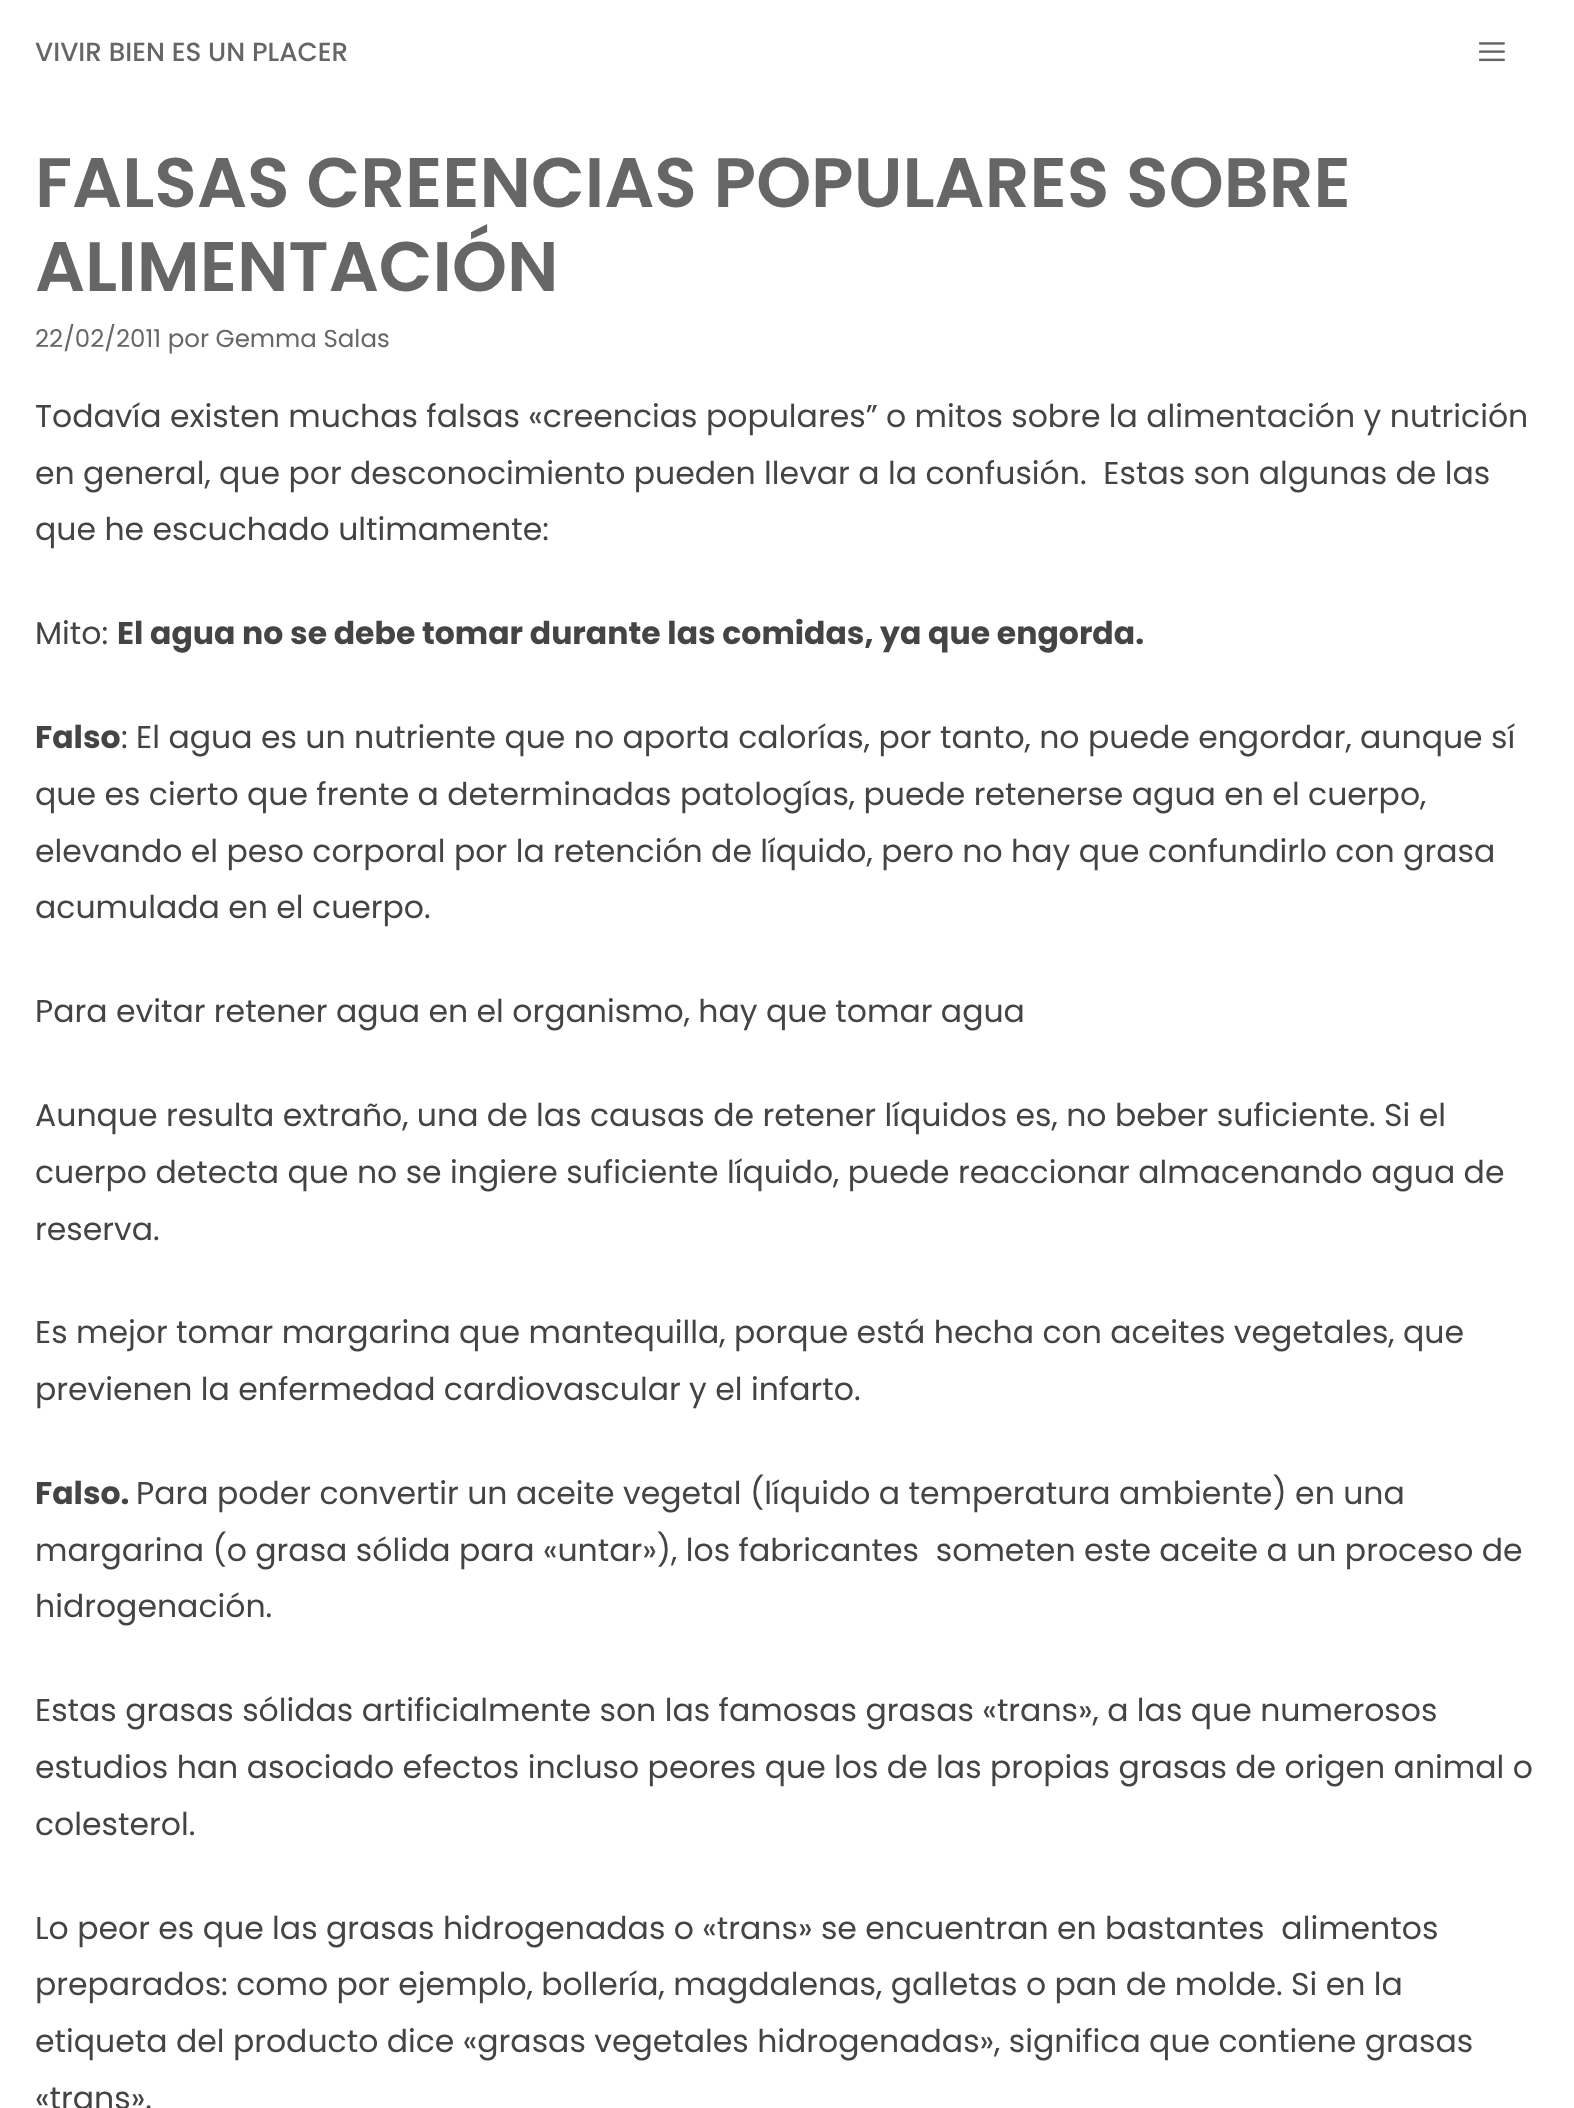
<!DOCTYPE html>
<meta charset="utf-8">
<style>body { margin: 0 } canvas { display: block }</style>
<canvas id="canvas" width="1574" height="2108"></canvas>
<script type="module">
  const canvas = document.getElementById("canvas");
  const ctx = canvas.getContext("2d");
  ctx.miterLimit = 4;
  ctx.fontKerning = "normal";
  async function loadImage(src) {
    const img = new Image();
    img.src = src;
    await img.decode();
    return img;
  }

  ctx.fillStyle = "#ffffff";
  ctx.fillRect(0, 0, 1574, 2108);
  ctx.font = "500 26.25px Poppins";
  ctx.fillStyle = "#666666";
  ctx.fillText("VIVIR BIEN ES UN PLACER", 35, 61);
  ctx.drawImage(await loadImage("img1.png"), 1479, 42, 26, 20);
  ctx.font = "600 70px Poppins";
  ctx.fillText("FALSAS CREENCIAS POPULARES SOBRE", 35, 207);
  ctx.fillText("ALIMENTACIÓN", 35, 291);
  ctx.font = "24.5px Poppins";
  ctx.fillText("22/02/2011 por Gemma Salas", 35, 347);
  ctx.font = "31.5px Poppins";
  ctx.fillStyle = "#444444";
  ctx.fillText("Todavía existen muchas falsas «creencias populares” o mitos sobre la alimentación y nutrición", 35, 427);
  ctx.fillText("en general, que por desconocimiento pueden llevar a la confusión.  Estas son algunas de las", 35, 484);
  ctx.fillText("que he escuchado ultimamente:", 35, 540);
  ctx.fillText("Mito:", 35, 644);
  ctx.font = "bold 31.5px Poppins";
  ctx.fillText("El agua no se debe tomar durante las comidas, ya que engorda.", 117, 644);
  ctx.fillText("Falso", 35, 748);
  ctx.font = "31.5px Poppins";
  ctx.fillText(": El agua es un nutriente que no aporta calorías, por tanto, no puede engordar, aunque sí", 121, 748);
  ctx.fillText("que es cierto que frente a determinadas patologías, puede retenerse agua en el cuerpo,", 35, 805);
  ctx.fillText("elevando el peso corporal por la retención de líquido, pero no hay que confundirlo con grasa", 35, 862);
  ctx.fillText("acumulada en el cuerpo.", 35, 918);
  ctx.fillText("Para evitar retener agua en el organismo, hay que tomar agua", 35, 1022);
  ctx.fillText("Aunque resulta extraño, una de las causas de retener líquidos es, no beber suficiente. Si el", 35, 1126);
  ctx.fillText("cuerpo detecta que no se ingiere suficiente líquido, puede reaccionar almacenando agua de", 35, 1183);
  ctx.fillText("reserva.", 35, 1240);
  ctx.fillText("Es mejor tomar margarina que mantequilla, porque está hecha con aceites vegetales, que", 35, 1343);
  ctx.fillText("previenen la enfermedad cardiovascular y el infarto.", 35, 1400);
  ctx.font = "bold 31.5px Poppins";
  ctx.fillText("Falso.", 35, 1504);
  ctx.font = "31.5px Poppins";
  ctx.fillText("Para poder convertir un aceite vegetal (líquido a temperatura ambiente) en una", 136, 1504);
  ctx.fillText("margarina (o grasa sólida para «untar»), los fabricantes  someten este aceite a un proceso de", 35, 1561);
  ctx.fillText("hidrogenación.", 35, 1617);
  ctx.fillText("Estas grasas sólidas artificialmente son las famosas grasas «trans», a las que numerosos", 35, 1721);
  ctx.fillText("estudios han asociado efectos incluso peores que los de las propias grasas de origen animal o", 35, 1778);
  ctx.fillText("colesterol.", 35, 1835);
  ctx.fillText("Lo peor es que las grasas hidrogenadas o «trans» se encuentran en bastantes  alimentos", 35, 1939);
  ctx.fillText("preparados: como por ejemplo, bollería, magdalenas, galletas o pan de molde. Si en la", 35, 1995);
  ctx.fillText("etiqueta del producto dice «grasas vegetales hidrogenadas», significa que contiene grasas", 35, 2052);
  ctx.fillText("«trans».", 35, 2109);
</script>
